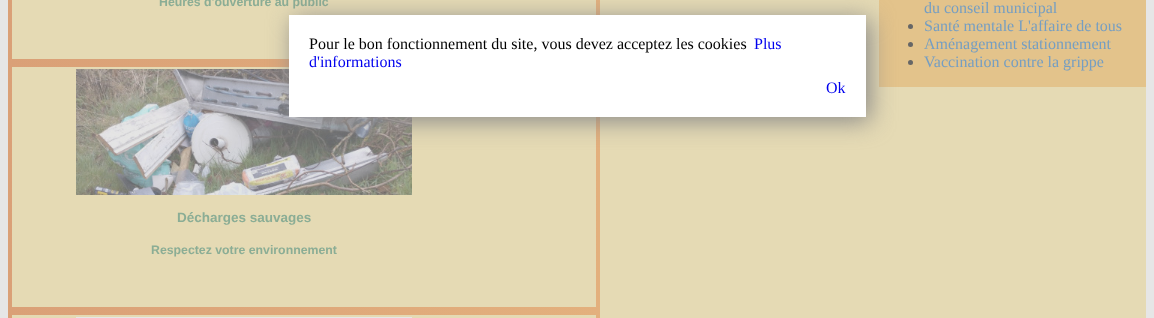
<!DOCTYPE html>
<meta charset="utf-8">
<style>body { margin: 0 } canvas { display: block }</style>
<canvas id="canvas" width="1154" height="318"></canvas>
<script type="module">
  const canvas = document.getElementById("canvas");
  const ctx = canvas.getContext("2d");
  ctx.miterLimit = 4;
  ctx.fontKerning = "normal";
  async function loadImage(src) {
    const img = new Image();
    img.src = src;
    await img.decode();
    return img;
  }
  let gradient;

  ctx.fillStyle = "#e6e6e6";
  ctx.fillRect(0, 0, 1154, 318);
  ctx.fillStyle = "#e5dab4";
  ctx.fillRect(600, 0, 546, 318);
  gradient = ctx.createLinearGradient(8, -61, 600, -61);
  gradient.addColorStop(0, "#daa077");
  gradient.addColorStop(1, "#e3b07d");
  ctx.fillStyle = gradient;
  ctx.fillRect(8, 0, 592, 63);
  ctx.fillStyle = "#e5dab4";
  ctx.fillRect(12, 0, 584, 59);
  ctx.font = "bold 12.3px Liberation Sans";
  ctx.fillStyle = "#8bad95";
  ctx.fillText("Heures d'ouverture au public", 159, 6);
  gradient = ctx.createLinearGradient(8, 187, 600, 187);
  gradient.addColorStop(0, "#daa077");
  gradient.addColorStop(1, "#e3b07d");
  ctx.fillStyle = gradient;
  ctx.fillRect(8, 63, 592, 248);
  ctx.fillStyle = "#e5dab4";
  ctx.fillRect(12, 67, 584, 240);
  ctx.drawImage(await loadImage("img1.png"), 76, 69, 336, 126);
  ctx.font = "bold 13.5px Liberation Sans";
  ctx.fillStyle = "#8bad95";
  ctx.fillText("Décharges sauvages", 177, 222);
  ctx.font = "bold 12.3px Liberation Sans";
  ctx.fillText("Respectez votre environnement", 151, 254);
  gradient = ctx.createLinearGradient(8, 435, 600, 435);
  gradient.addColorStop(0, "#daa077");
  gradient.addColorStop(1, "#e3b07d");
  ctx.fillStyle = gradient;
  ctx.fillRect(8, 311, 592, 7);
  ctx.fillStyle = "#e5dab4";
  ctx.fillRect(12, 315, 584, 3);
  ctx.fillStyle = "#e6e6e6";
  ctx.fillRect(76, 317, 336, 1);
  ctx.fillStyle = "#e3c38b";
  ctx.fillRect(879, 0, 267, 87);
  ctx.font = "16px Liberation Serif";
  ctx.fillStyle = "#759ec2";
  ctx.fillText("du conseil municipal", 924, 13);
  ctx.fillStyle = "#666666";
  ctx.beginPath();
  ctx.arc(910.5, 26.5, 2.5, 0, Math.PI * 2);
  ctx.fill();
  ctx.fillStyle = "#759ec2";
  ctx.fillText("Santé mentale L'affaire de tous", 924, 31);
  ctx.fillStyle = "#666666";
  ctx.beginPath();
  ctx.arc(910.5, 44.5, 2.5, 0, Math.PI * 2);
  ctx.fill();
  ctx.fillStyle = "#759ec2";
  ctx.fillText("Aménagement stationnement", 924, 49);
  ctx.fillStyle = "#666666";
  ctx.beginPath();
  ctx.arc(910.5, 62.5, 2.5, 0, Math.PI * 2);
  ctx.fill();
  ctx.fillStyle = "#759ec2";
  ctx.fillText("Vaccination contre la grippe", 924, 67);
  ctx.fillStyle = "#888888";
  ctx.filter = "blur(12.5px)";
  ctx.beginPath();
  ctx.rect(293, 19, 577, 102);
  ctx.fill();
  ctx.filter = "none";
  ctx.fillStyle = "#ffffff";
  ctx.fillRect(289, 15, 577, 102);
  ctx.fillStyle = "#000000";
  ctx.fillText("Pour le bon fonctionnement du site, vous devez acceptez les cookies", 309, 49);
  ctx.fillStyle = "#0000ee";
  ctx.fillText("Plus", 754, 49);
  ctx.fillText("d'informations", 309, 67);
  ctx.fillText("Ok", 826, 93);
</script>
